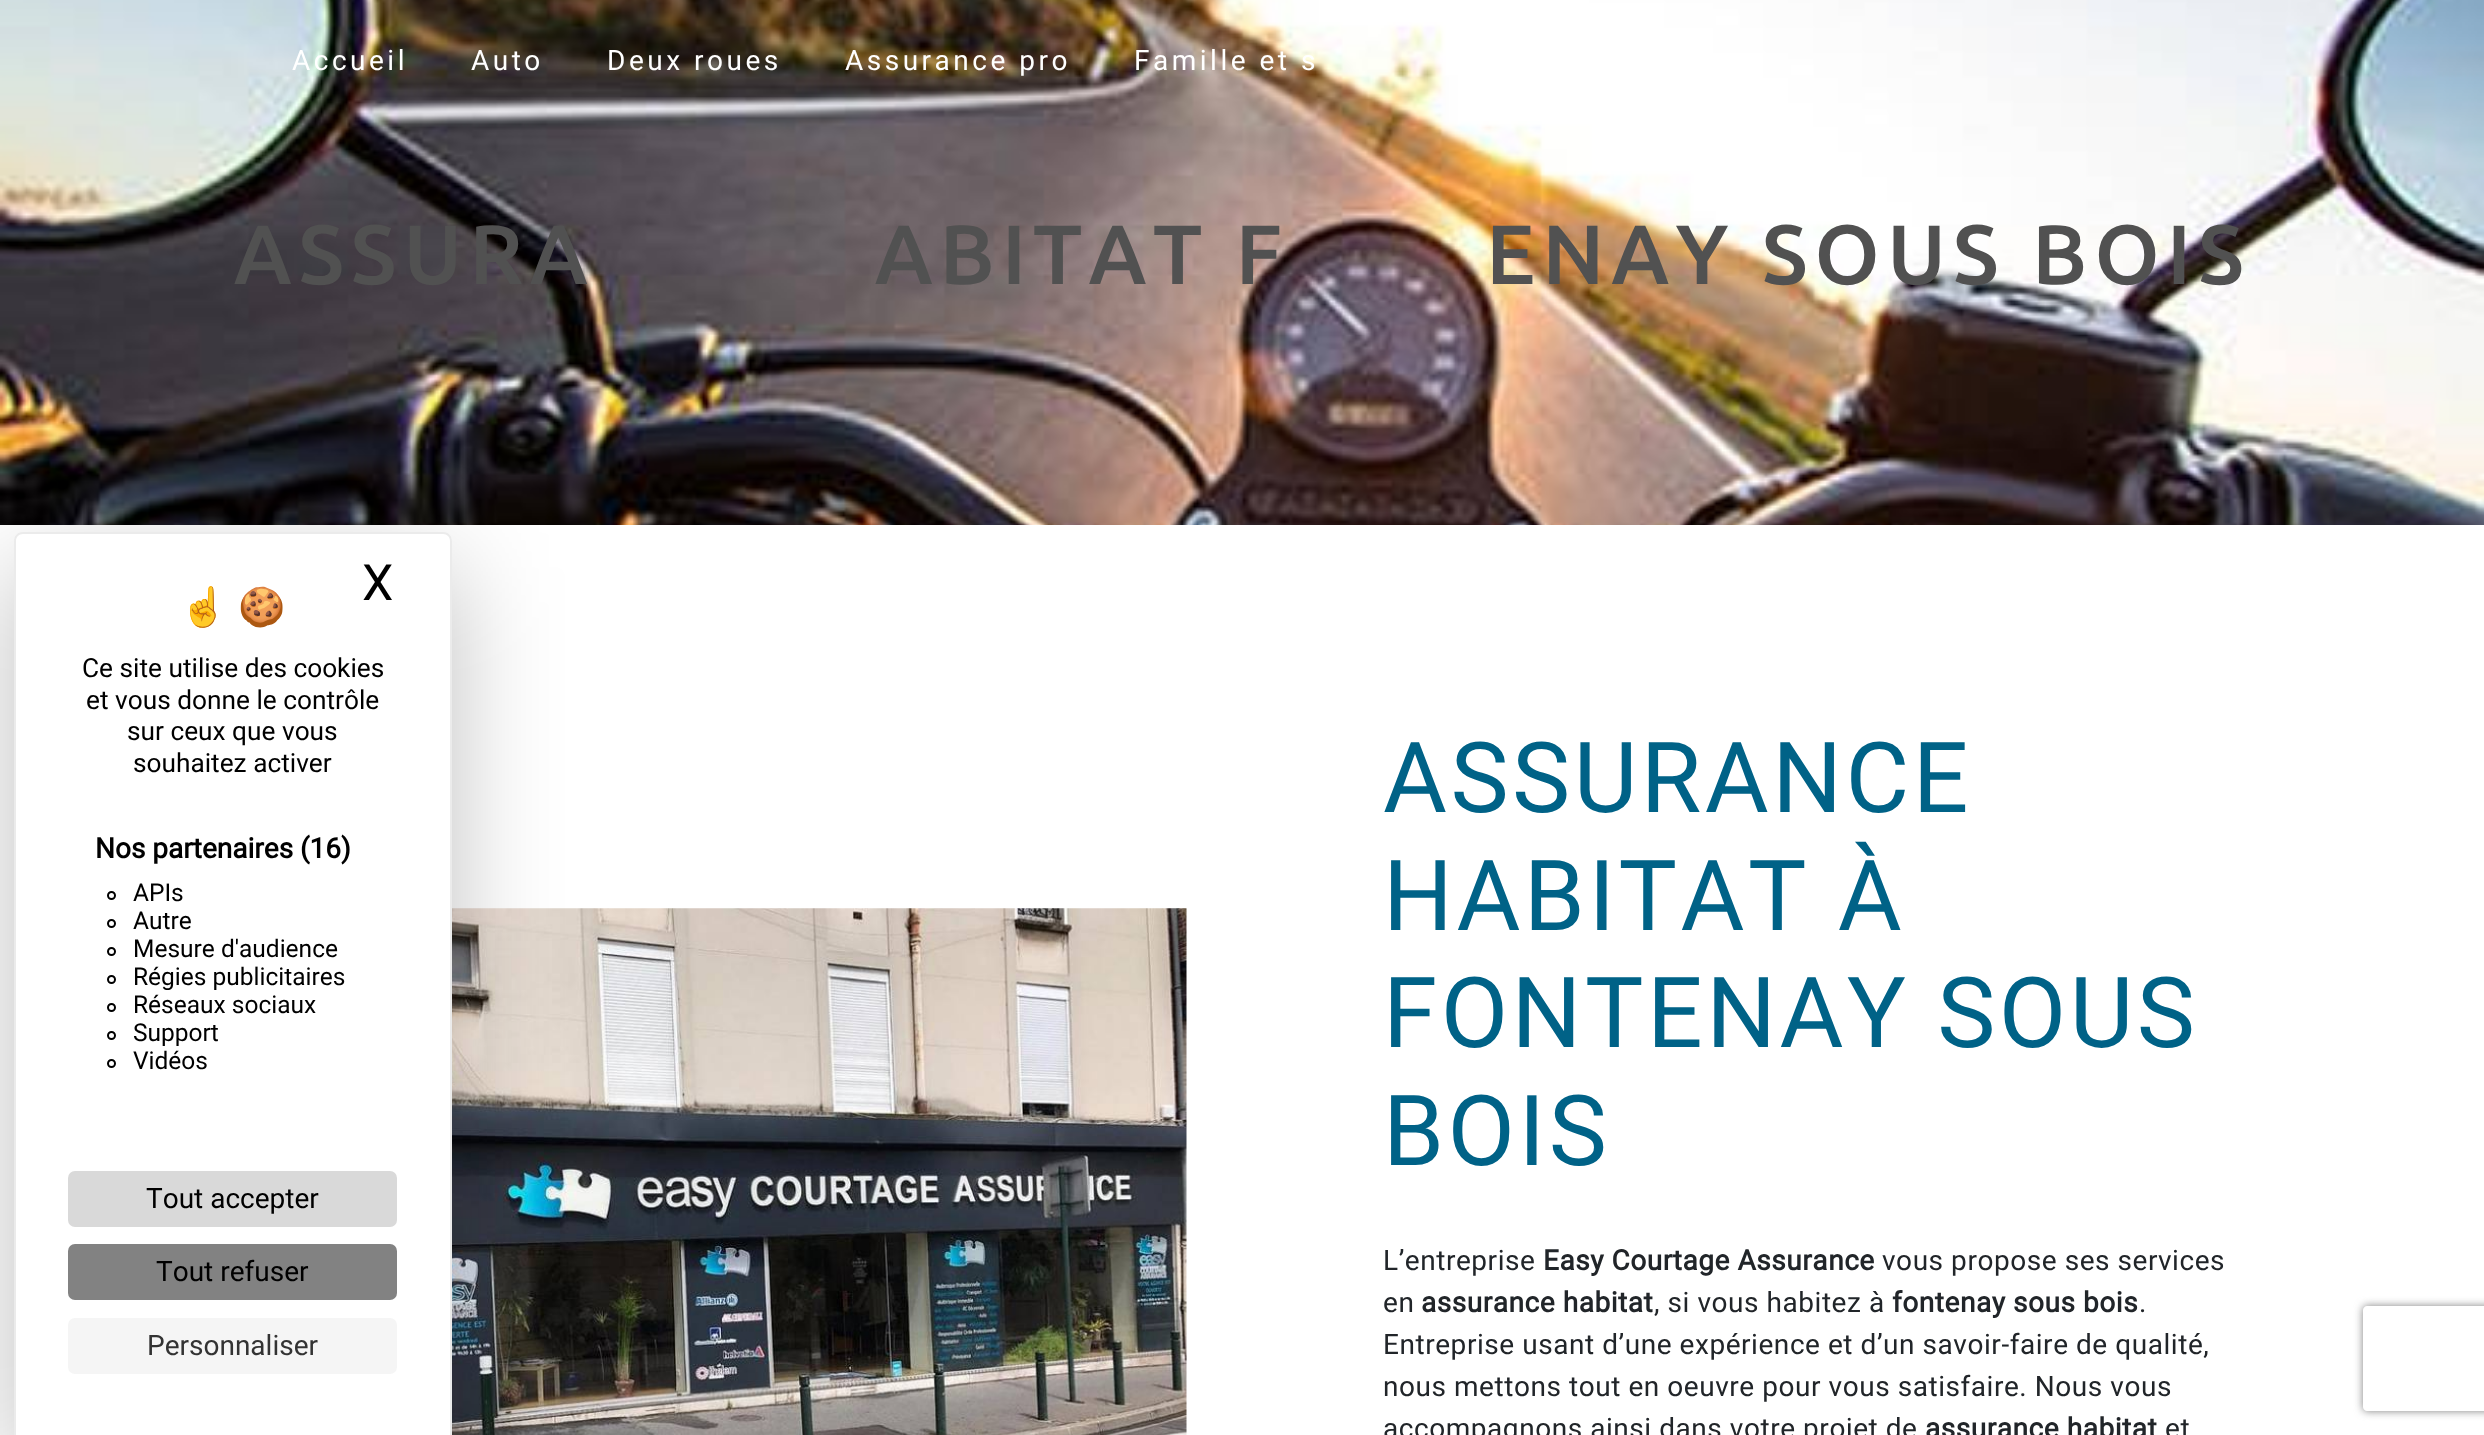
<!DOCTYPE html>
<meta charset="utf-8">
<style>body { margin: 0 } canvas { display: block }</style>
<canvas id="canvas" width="2484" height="1435"></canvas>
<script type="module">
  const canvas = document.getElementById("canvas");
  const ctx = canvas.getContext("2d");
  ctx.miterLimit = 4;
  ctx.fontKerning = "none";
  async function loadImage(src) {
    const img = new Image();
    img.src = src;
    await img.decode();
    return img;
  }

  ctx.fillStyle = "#ffffff";
  ctx.fillRect(0, 0, 2484, 1435);
  ctx.drawImage(await loadImage("img1.png"), 0, 0, 2484, 525);
  ctx.letterSpacing = "3.5px";
  ctx.font = "28px Roboto";
  ctx.fillText("Accueil", 292, 70);
  ctx.fillText("Auto", 471, 70);
  ctx.fillText("Deux roues", 607, 70);
  ctx.fillText("Assurance pro", 845, 70);
  ctx.fillText("Famille et s", 1134, 70);
  ctx.letterSpacing = "7px";
  ctx.font = "500 84px Ubuntu";
  ctx.fillStyle = "#515151";
  ctx.fillText("ASSURA", 234, 284);
  ctx.fillText("ABITAT F", 875, 284);
  ctx.fillText("ENAY SOUS BOIS", 1486, 284);
  ctx.drawImage(await loadImage("img2.png"), 452, 908, 735, 527);
  ctx.letterSpacing = "3.5px";
  ctx.font = "98px Roboto";
  ctx.fillStyle = "#006287";
  ctx.fillText("ASSURANCE", 1383, 812);
  ctx.fillText("HABITAT À", 1383, 930);
  ctx.fillText("FONTENAY SOUS", 1383, 1047);
  ctx.fillText("BOIS", 1383, 1165);
  ctx.letterSpacing = "0.55px";
  ctx.font = "28px Roboto";
  ctx.fillStyle = "#212529";
  ctx.fillText("L’entreprise", 1383, 1270);
  ctx.font = "bold 28px Roboto";
  ctx.fillText("Easy Courtage Assurance", 1543, 1270);
  ctx.font = "28px Roboto";
  ctx.fillText("vous propose ses services", 1882, 1270);
  ctx.fillText("en", 1383, 1312);
  ctx.font = "bold 28px Roboto";
  ctx.fillText("assurance habitat", 1421, 1312);
  ctx.font = "28px Roboto";
  ctx.fillText(", si vous habitez à", 1654, 1312);
  ctx.font = "bold 28px Roboto";
  ctx.fillText("fontenay sous bois", 1892, 1312);
  ctx.font = "28px Roboto";
  ctx.fillText(".", 2139, 1312);
  ctx.fillText("Entreprise usant d’une expérience et d’un savoir-faire de qualité,", 1383, 1354);
  ctx.fillText("nous mettons tout en oeuvre pour vous satisfaire. Nous vous", 1383, 1396);
  ctx.fillText("accompagnons ainsi dans votre projet de", 1383, 1438);
  ctx.font = "bold 28px Roboto";
  ctx.fillText("assurance habitat", 1925, 1438);
  ctx.font = "28px Roboto";
  ctx.fillText("et", 2165, 1438);
  ctx.fillStyle = "rgba(0, 0, 0, 0.25)";
  ctx.filter = "blur(52.5px)";
  ctx.beginPath();
  ctx.roundRect(14, 567, 438, 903, 9);
  ctx.fill();
  ctx.filter = "none";
  ctx.fillStyle = "#ffffff";
  ctx.beginPath();
  ctx.roundRect(14, 532, 438, 903, [9, 9, 0, 0]);
  ctx.fill();
  ctx.fillStyle = "rgba(0, 0, 0, 0.08)";
  ctx.beginPath();
  ctx.moveTo(23, 532);
  ctx.lineTo(443, 532);
  ctx.bezierCurveTo(448, 532, 452, 536, 452, 541);
  ctx.lineTo(452, 1435);
  ctx.lineTo(14, 1435);
  ctx.lineTo(14, 541);
  ctx.bezierCurveTo(14, 536, 18, 532, 23, 532);
  ctx.closePath();
  ctx.moveTo(23, 534);
  ctx.lineTo(443, 534);
  ctx.bezierCurveTo(447, 534, 450, 537, 450, 541);
  ctx.lineTo(450, 1435);
  ctx.lineTo(16, 1435);
  ctx.lineTo(16, 541);
  ctx.bezierCurveTo(16, 537, 19, 534, 23, 534);
  ctx.closePath();
  ctx.fill("evenodd");
  ctx.letterSpacing = "0px";
  ctx.font = "38px Noto Color Emoji";
  ctx.fillStyle = "#000000";
  ctx.fillText("☝️", 180, 620);
  ctx.fillText("🍪", 238, 620);
  ctx.font = "50px Roboto";
  ctx.fillText("X", 362, 600);
  ctx.font = "26.25px Roboto";
  ctx.fillText("Ce site utilise des cookies", 82, 677);
  ctx.fillText("et vous donne le contrôle", 86, 709);
  ctx.fillText("sur ceux que vous", 127, 740);
  ctx.fillText("souhaitez activer", 133, 772);
  ctx.font = "bold 28px Roboto";
  ctx.fillText("Nos partenaires (16)", 95, 858);
  ctx.beginPath();
  ctx.arc(111.5, 895.5, 3.5, 0, Math.PI * 2);
  ctx.strokeStyle = "#000000";
  ctx.lineWidth = 2;
  ctx.stroke();
  ctx.font = "24.5px Roboto";
  ctx.fillText("APIs", 133, 901);
  ctx.beginPath();
  ctx.arc(111.5, 923.5, 3.5, 0, Math.PI * 2);
  ctx.stroke();
  ctx.fillText("Autre", 133, 929);
  ctx.beginPath();
  ctx.arc(111.5, 951.5, 3.5, 0, Math.PI * 2);
  ctx.stroke();
  ctx.fillText("Mesure d'audience", 133, 957);
  ctx.beginPath();
  ctx.arc(111.5, 979.5, 3.5, 0, Math.PI * 2);
  ctx.stroke();
  ctx.fillText("Régies publicitaires", 133, 985);
  ctx.beginPath();
  ctx.arc(111.5, 1007.5, 3.5, 0, Math.PI * 2);
  ctx.stroke();
  ctx.fillText("Réseaux sociaux", 133, 1013);
  ctx.beginPath();
  ctx.arc(111.5, 1035.5, 3.5, 0, Math.PI * 2);
  ctx.stroke();
  ctx.fillText("Support", 133, 1041);
  ctx.beginPath();
  ctx.arc(111.5, 1063.5, 3.5, 0, Math.PI * 2);
  ctx.stroke();
  ctx.fillText("Vidéos", 133, 1069);
  ctx.fillStyle = "#d9d9d9";
  ctx.beginPath();
  ctx.roundRect(68, 1171, 329, 56, 7);
  ctx.fill();
  ctx.font = "28px Roboto";
  ctx.fillStyle = "#000000";
  ctx.fillText("Tout accepter", 146, 1208);
  ctx.fillStyle = "#828282";
  ctx.beginPath();
  ctx.roundRect(68, 1244, 329, 56, 7);
  ctx.fill();
  ctx.fillStyle = "#000000";
  ctx.fillText("Tout refuser", 156, 1281);
  ctx.fillStyle = "#f5f5f5";
  ctx.beginPath();
  ctx.roundRect(68, 1318, 329, 56, 7);
  ctx.fill();
  ctx.fillStyle = "#333333";
  ctx.fillText("Personnaliser", 147, 1355);
  ctx.save();
  ctx.beginPath();
  ctx.moveTo(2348, 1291);
  ctx.lineTo(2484, 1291);
  ctx.lineTo(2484, 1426);
  ctx.lineTo(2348, 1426);
  ctx.closePath();
  ctx.moveTo(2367, 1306);
  ctx.lineTo(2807, 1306);
  ctx.bezierCurveTo(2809, 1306, 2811, 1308, 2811, 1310);
  ctx.lineTo(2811, 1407);
  ctx.bezierCurveTo(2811, 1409, 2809, 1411, 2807, 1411);
  ctx.lineTo(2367, 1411);
  ctx.bezierCurveTo(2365, 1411, 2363, 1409, 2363, 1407);
  ctx.lineTo(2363, 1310);
  ctx.bezierCurveTo(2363, 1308, 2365, 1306, 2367, 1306);
  ctx.closePath();
  ctx.clip("evenodd");
  ctx.fillStyle = "#808080";
  ctx.filter = "blur(4.5px)";
  ctx.beginPath();
  ctx.roundRect(2363, 1306, 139, 105, 4);
  ctx.fill();
  ctx.filter = "none";
  ctx.restore();
</script>
